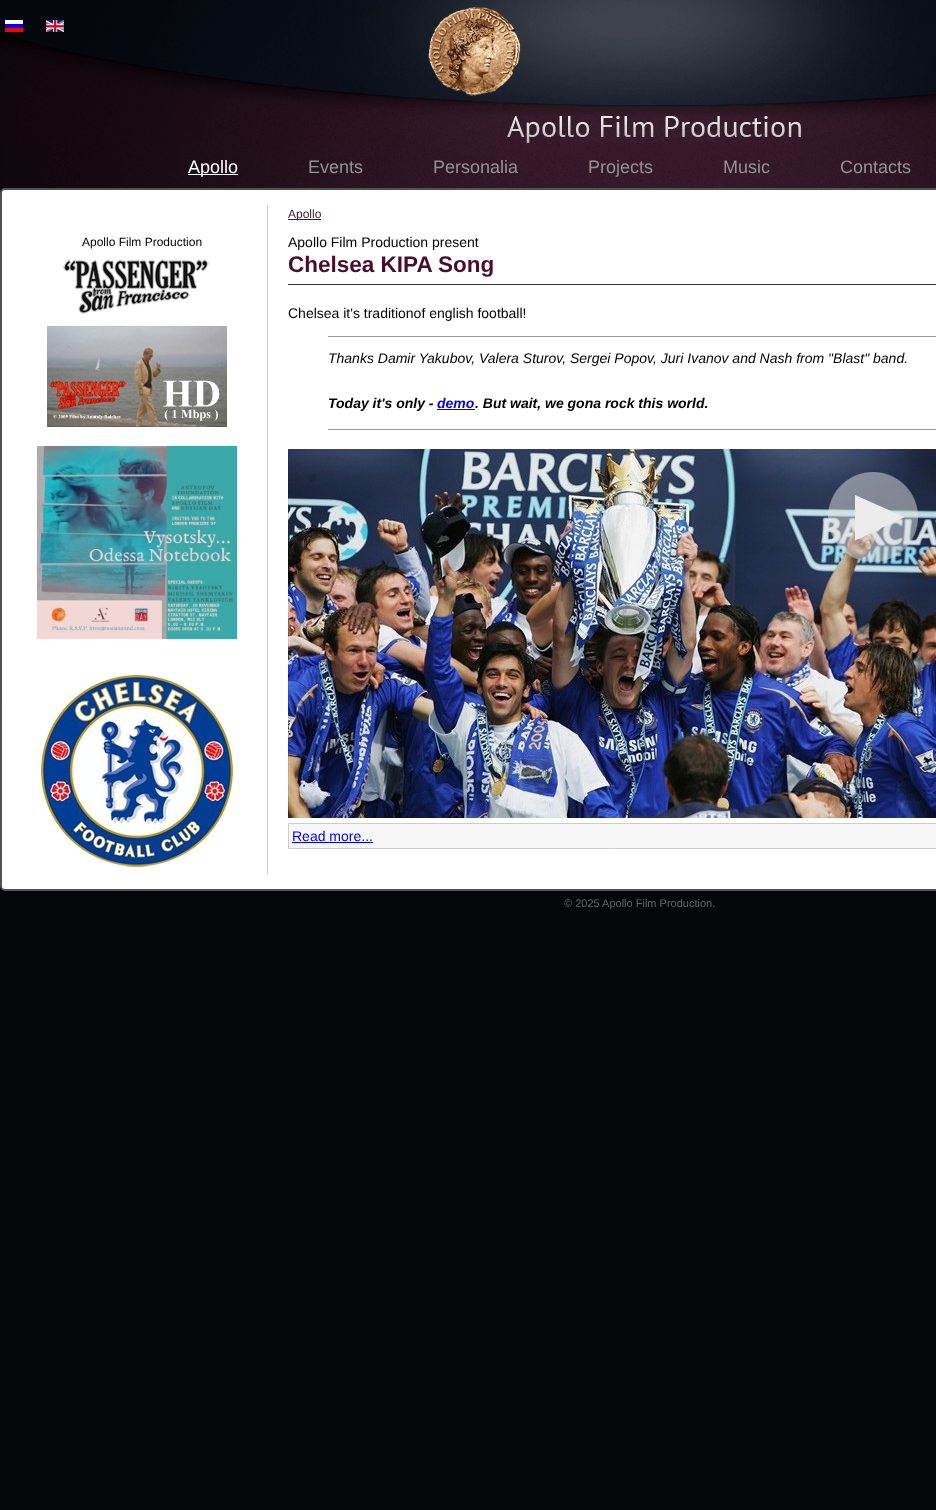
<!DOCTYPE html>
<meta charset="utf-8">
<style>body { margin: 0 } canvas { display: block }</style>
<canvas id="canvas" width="936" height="1510"></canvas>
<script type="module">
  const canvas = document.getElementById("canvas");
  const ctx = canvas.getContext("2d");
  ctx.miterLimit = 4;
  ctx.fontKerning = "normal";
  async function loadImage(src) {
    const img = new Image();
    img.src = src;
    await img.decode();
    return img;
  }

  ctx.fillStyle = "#050609";
  ctx.fillRect(0, 0, 936, 1510);
  ctx.drawImage(await loadImage("img1.png"), 0, 0, 936, 143);
  ctx.drawImage(await loadImage("img2.png"), 5, 20, 18, 12);
  ctx.drawImage(await loadImage("img3.png"), 46, 20, 18, 12);
  ctx.drawImage(await loadImage("img4.png"), 428, 7, 93, 89);
  ctx.drawImage(await loadImage("img5.png"), 0, 143, 936, 50);
  ctx.fillStyle = "#ffffff";
  ctx.fillRect(188, 174, 50, 1);
  ctx.font = "18px Liberation Sans";
  ctx.fillText("Apollo", 188, 173);
  ctx.fillStyle = "#939395";
  ctx.fillText("Events", 308, 173);
  ctx.fillText("Personalia", 433, 173);
  ctx.fillText("Projects", 588, 173);
  ctx.fillText("Music", 723, 173);
  ctx.fillText("Contacts", 840, 173);
  ctx.fillStyle = "#ffffff";
  ctx.beginPath();
  ctx.roundRect(1, 189, 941, 701, 4);
  ctx.fill();
  ctx.strokeStyle = "#535152";
  ctx.lineWidth = 2;
  ctx.stroke();
  ctx.font = "12px Liberation Sans";
  ctx.fillStyle = "#000000";
  ctx.fillText("Apollo Film Production", 82, 246);
  ctx.drawImage(await loadImage("img6.png"), 63, 259, 146, 55);
  ctx.drawImage(await loadImage("img7.png"), 47, 326, 180, 101);
  ctx.drawImage(await loadImage("img8.png"), 37, 446, 200, 193);
  ctx.drawImage(await loadImage("img9.png"), 41, 675, 192, 192);
  ctx.fillStyle = "#cccccc";
  ctx.fillRect(267, 205, 1, 669);
  ctx.fillStyle = "#40162c";
  ctx.fillRect(288, 219, 33, 1);
  ctx.fillText("Apollo", 288, 218);
  ctx.font = "14px Liberation Sans";
  ctx.fillStyle = "#000000";
  ctx.fillText("Apollo Film Production present", 288, 247);
  ctx.fillStyle = "#333333";
  ctx.fillRect(288, 284, 648, 1);
  ctx.font = "bold 22.5px Liberation Sans";
  ctx.fillStyle = "#490e2d";
  ctx.fillText("Chelsea KIPA Song", 288, 272);
  ctx.font = "14px Liberation Sans";
  ctx.fillStyle = "#000000";
  ctx.fillText("Chelsea it's traditionof english football!", 288, 318);
  ctx.fillStyle = "#999999";
  ctx.fillRect(328, 336, 608, 1);
  ctx.fillRect(328, 429, 608, 1);
  ctx.font = "italic 14px Liberation Sans";
  ctx.fillStyle = "#000000";
  ctx.fillText("Thanks Damir Yakubov, Valera Sturov, Sergei Popov, Juri Ivanov and Nash from \"Blast\" band.", 328, 363);
  ctx.font = "italic bold 14px Liberation Sans";
  ctx.fillText("Today it's only -", 328, 408);
  ctx.fillStyle = "#0000ee";
  ctx.fillText("demo", 437, 408);
  ctx.fillStyle = "#000000";
  ctx.fillText(". But wait, we gona rock this world.", 475, 408);
  ctx.fillStyle = "#0000ee";
  ctx.fillRect(437, 409, 38, 1);
  ctx.drawImage(await loadImage("img10.png"), 288, 449, 648, 369);
  ctx.fillStyle = "#f7f6f7";
  ctx.beginPath();
  ctx.rect(288.5, 823.5, 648, 25);
  ctx.fill();
  ctx.strokeStyle = "#cccccc";
  ctx.lineWidth = 1;
  ctx.stroke();
  ctx.font = "14px Liberation Sans";
  ctx.fillStyle = "#0000ee";
  ctx.fillText("Read more...", 292, 841);
  ctx.fillRect(292, 842, 81, 1);
  ctx.font = "11px Liberation Sans";
  ctx.fillStyle = "#666666";
  ctx.fillText("© 2025 Apollo Film Production.", 564, 907);
</script>
